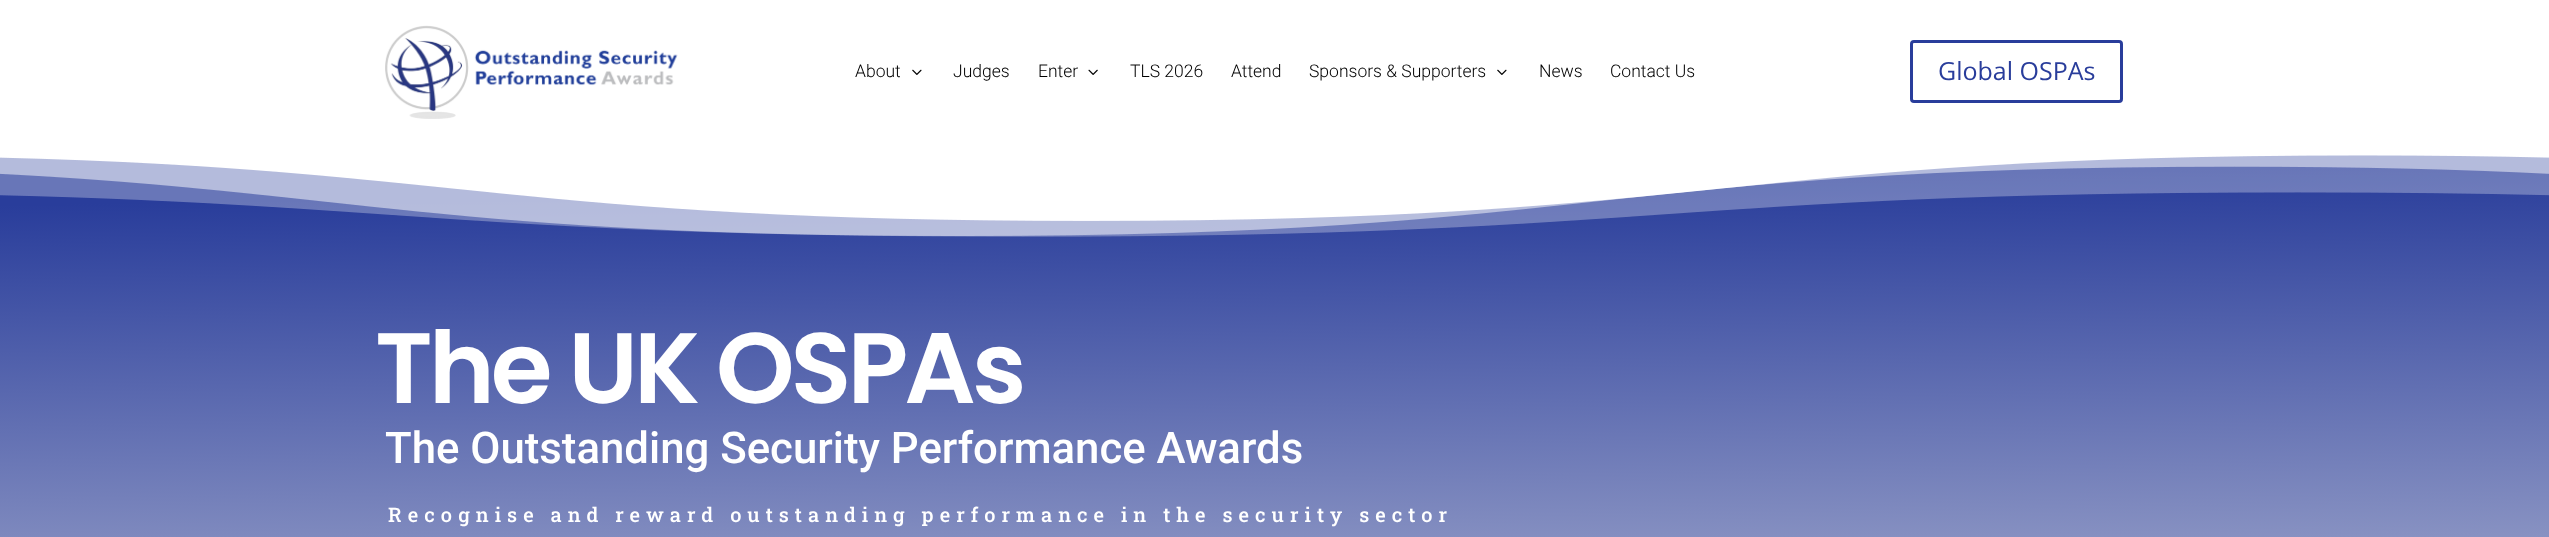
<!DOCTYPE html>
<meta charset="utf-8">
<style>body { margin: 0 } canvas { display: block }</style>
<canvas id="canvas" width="2549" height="537"></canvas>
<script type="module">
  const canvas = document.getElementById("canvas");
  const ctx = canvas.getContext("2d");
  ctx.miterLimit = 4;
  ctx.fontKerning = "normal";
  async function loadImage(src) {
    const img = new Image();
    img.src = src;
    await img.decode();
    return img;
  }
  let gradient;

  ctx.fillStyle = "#ffffff";
  ctx.fillRect(0, 0, 2549, 537);
  ctx.drawImage(await loadImage("img1.png"), 385, 25, 293, 94);
  ctx.font = "300 17.5px Roboto";
  ctx.fillStyle = "#000000";
  ctx.fillText("About", 855, 77);
  ctx.drawImage(await loadImage("img2.png"), 912, 69, 10, 6);
  ctx.fillText("Judges", 953, 77);
  ctx.fillText("Enter", 1038, 77);
  ctx.drawImage(await loadImage("img3.png"), 1088, 69, 10, 6);
  ctx.fillText("TLS 2026", 1130, 77);
  ctx.fillText("Attend", 1231, 77);
  ctx.fillText("Sponsors & Supporters", 1309, 77);
  ctx.drawImage(await loadImage("img2.png"), 1497, 69, 10, 6);
  ctx.fillText("News", 1539, 77);
  ctx.fillText("Contact Us", 1610, 77);
  ctx.beginPath();
  ctx.roundRect(1911.5, 41.5, 210, 60, 2.5);
  ctx.strokeStyle = "#293d9b";
  ctx.lineWidth = 3;
  ctx.stroke();
  ctx.font = "25px Open Sans";
  ctx.fillStyle = "#293d9b";
  ctx.fillText("Global OSPAs", 1938, 80);
  gradient = ctx.createLinearGradient(1281, 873, 1269, 133);
  gradient.addColorStop(0, "#ffffff");
  gradient.addColorStop(0.08, "#c9ccdd");
  gradient.addColorStop(0.93, "#293d9b");
  ctx.fillStyle = gradient;
  ctx.fillRect(0, 155, 2549, 382);
  ctx.drawImage(await loadImage("img4.png"), 0, 155, 2549, 82);
  ctx.letterSpacing = "-4px";
  ctx.font = "600 100px Poppins";
  ctx.fillStyle = "#ffffff";
  ctx.fillText("The UK OSPAs", 375, 403);
  ctx.letterSpacing = "0px";
  ctx.font = "500 43.75px Roboto";
  ctx.fillText("The Outstanding Security Performance Awards", 385, 463);
  ctx.letterSpacing = "6px";
  ctx.font = "500 20px Roboto Slab";
  ctx.fillText("Recognise and reward outstanding performance in the security sector", 388, 522);
</script>
